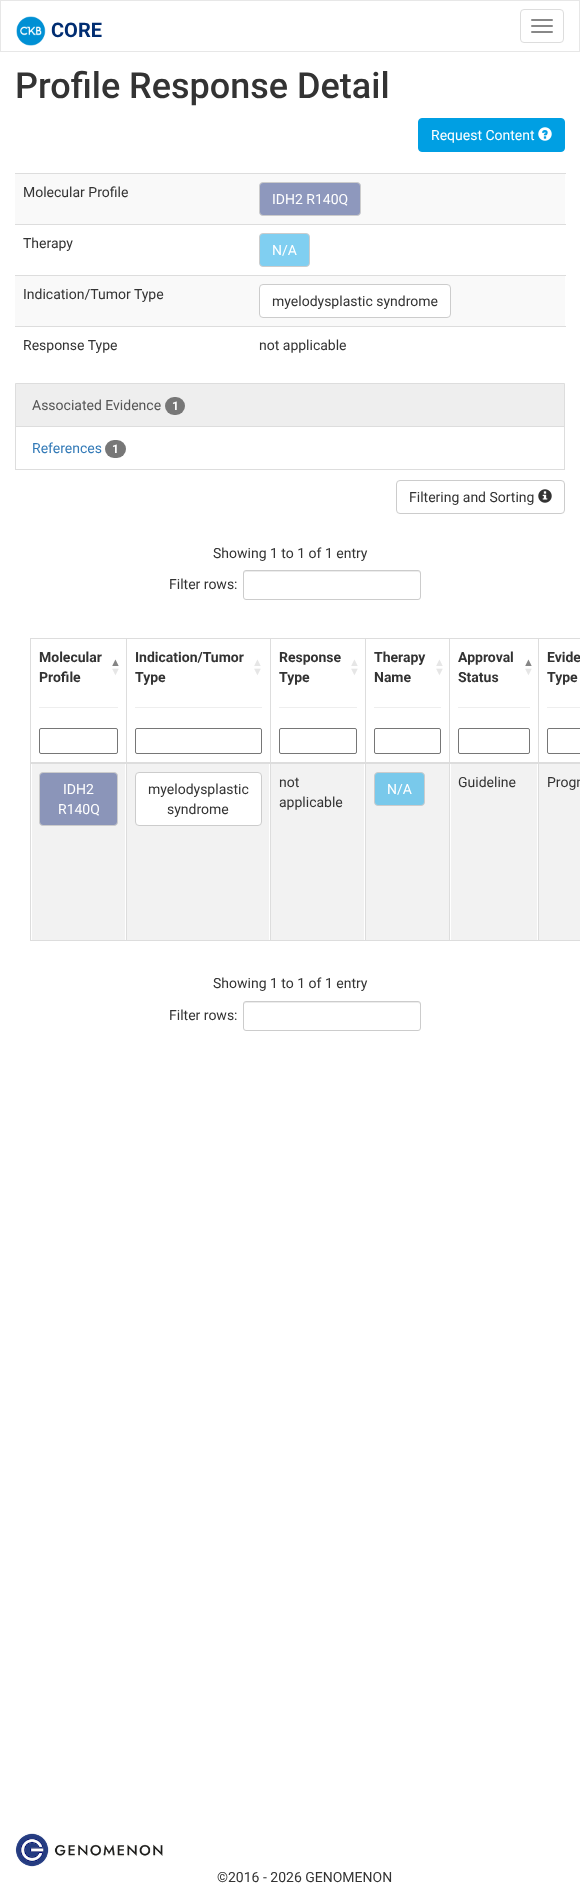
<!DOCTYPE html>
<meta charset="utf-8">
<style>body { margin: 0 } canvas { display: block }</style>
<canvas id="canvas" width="580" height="1898"></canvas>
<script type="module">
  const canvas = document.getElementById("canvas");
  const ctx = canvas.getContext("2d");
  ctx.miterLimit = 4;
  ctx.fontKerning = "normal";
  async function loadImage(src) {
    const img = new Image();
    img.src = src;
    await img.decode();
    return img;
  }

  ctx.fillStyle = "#ffffff";
  ctx.fillRect(0, 0, 580, 1898);
  ctx.strokeStyle = "#e7e7e7";
  ctx.strokeRect(0.5, 0.5, 579, 51);
  ctx.drawImage(await loadImage("img1.png"), 16, 16, 30, 30);
  ctx.font = "bold 20px Roboto";
  ctx.fillStyle = "#002d72";
  ctx.fillText("CORE", 51, 37);
  ctx.beginPath();
  ctx.roundRect(520.5, 9.5, 43, 33, 3.5);
  ctx.strokeStyle = "#dddddd";
  ctx.stroke();
  ctx.fillStyle = "#888888";
  ctx.beginPath();
  ctx.roundRect(531, 19, 22, 2, 1);
  ctx.fill();
  ctx.beginPath();
  ctx.roundRect(531, 25, 22, 2, 1);
  ctx.fill();
  ctx.beginPath();
  ctx.roundRect(531, 31, 22, 2, 1);
  ctx.fill();
  ctx.font = "500 36px Roboto";
  ctx.fillStyle = "#333333";
  ctx.fillText("Profile Response Detail", 15, 98);
  ctx.fillStyle = "#009fe3";
  ctx.beginPath();
  ctx.roundRect(418.5, 118.5, 146, 33, 3.5);
  ctx.fill();
  ctx.strokeStyle = "#009fe3";
  ctx.stroke();
  ctx.font = "14px Roboto";
  ctx.fillStyle = "#ffffff";
  ctx.fillText("Request Content", 431, 140);
  ctx.drawImage(await loadImage("img2.png"), 538, 127, 14, 14);
  ctx.fillStyle = "#f9f9f9";
  ctx.fillRect(15, 174, 550, 50);
  ctx.fillStyle = "#333333";
  ctx.fillText("Molecular Profile", 23, 197);
  ctx.fillStyle = "#dddddd";
  ctx.fillRect(15, 173, 551, 1);
  ctx.fillStyle = "#8e98bd";
  ctx.beginPath();
  ctx.roundRect(259.5, 182.5, 101, 33, 3.5);
  ctx.fill();
  ctx.strokeStyle = "#cccccc";
  ctx.stroke();
  ctx.fillStyle = "#ffffff";
  ctx.fillText("IDH2 R140Q", 272, 204);
  ctx.fillStyle = "#333333";
  ctx.fillText("Therapy", 23, 248);
  ctx.fillStyle = "#dddddd";
  ctx.fillRect(15, 224, 551, 1);
  ctx.fillStyle = "#80cff1";
  ctx.beginPath();
  ctx.roundRect(259.5, 233.5, 50, 33, 3.5);
  ctx.fill();
  ctx.stroke();
  ctx.fillStyle = "#ffffff";
  ctx.fillText("N/A", 272, 255);
  ctx.fillStyle = "#f9f9f9";
  ctx.fillRect(15, 276, 550, 50);
  ctx.fillStyle = "#333333";
  ctx.fillText("Indication/Tumor Type", 23, 299);
  ctx.fillStyle = "#dddddd";
  ctx.fillRect(15, 275, 551, 1);
  ctx.fillStyle = "#ffffff";
  ctx.beginPath();
  ctx.roundRect(259.5, 284.5, 191, 33, 3.5);
  ctx.fill();
  ctx.stroke();
  ctx.fillStyle = "#333333";
  ctx.fillText("myelodysplastic syndrome", 272, 306);
  ctx.fillText("Response Type", 23, 350);
  ctx.fillStyle = "#dddddd";
  ctx.fillRect(15, 326, 551, 1);
  ctx.fillStyle = "#333333";
  ctx.fillText("not applicable", 259, 350);
  ctx.fillStyle = "#eeeeee";
  ctx.beginPath();
  ctx.rect(15.5, 383.5, 549, 43);
  ctx.fill();
  ctx.strokeStyle = "#dddddd";
  ctx.stroke();
  ctx.fillStyle = "#555555";
  ctx.fillText("Associated Evidence", 32, 410);
  ctx.fillStyle = "#777777";
  ctx.beginPath();
  ctx.roundRect(165, 397, 20, 18, 9);
  ctx.fill();
  ctx.font = "bold 12px Roboto";
  ctx.fillStyle = "#ffffff";
  ctx.fillText("1", 172, 410);
  ctx.strokeRect(15.5, 426.5, 549, 43);
  ctx.font = "14px Roboto";
  ctx.fillStyle = "#337ab7";
  ctx.fillText("References", 32, 453);
  ctx.fillStyle = "#777777";
  ctx.beginPath();
  ctx.roundRect(105, 440, 21, 18, 9);
  ctx.fill();
  ctx.font = "bold 12px Roboto";
  ctx.fillStyle = "#ffffff";
  ctx.fillText("1", 112, 453);
  ctx.beginPath();
  ctx.roundRect(396.5, 480.5, 168, 33, 3.5);
  ctx.strokeStyle = "#cccccc";
  ctx.stroke();
  ctx.font = "14px Roboto";
  ctx.fillStyle = "#333333";
  ctx.fillText("Filtering and Sorting", 409, 502);
  ctx.drawImage(await loadImage("img3.png"), 538, 489, 14, 14);
  ctx.fillText("Showing 1 to 1 of 1 entry", 213, 558);
  ctx.fillText("Filter rows:", 169, 589);
  ctx.fillStyle = "#ececec";
  ctx.beginPath();
  ctx.moveTo(246, 572);
  ctx.lineTo(418, 572);
  ctx.bezierCurveTo(419, 572, 420, 573, 420, 574);
  ctx.bezierCurveTo(420, 573, 420, 571, 418, 571);
  ctx.lineTo(245, 571);
  ctx.bezierCurveTo(244, 572, 244, 573, 244, 574);
  ctx.bezierCurveTo(244, 573, 245, 572, 246, 572);
  ctx.closePath();
  ctx.fill();
  ctx.beginPath();
  ctx.roundRect(243.5, 570.5, 177, 29, 2.5);
  ctx.stroke();
  ctx.fillStyle = "#dddddd";
  ctx.fillRect(30, 638, 550, 1);
  ctx.fillRect(30, 940, 550, 1);
  ctx.fillRect(30, 638, 1, 303);
  ctx.font = "bold 14px Roboto";
  ctx.fillStyle = "#333333";
  ctx.fillText("Molecular", 39, 662);
  ctx.fillText("Profile", 39, 682);
  ctx.font = "bold 11px Liberation Sans";
  ctx.fillStyle = "#858585";
  ctx.fillText("▲", 110, 666);
  ctx.fillStyle = "#e6e6e6";
  ctx.fillText("▼", 110, 675);
  ctx.fillStyle = "#eeeeee";
  ctx.fillRect(39, 707, 79, 1);
  ctx.beginPath();
  ctx.roundRect(39.5, 728.5, 78, 25, 1.5);
  ctx.strokeStyle = "#767676";
  ctx.stroke();
  ctx.font = "bold 14px Roboto";
  ctx.fillStyle = "#333333";
  ctx.fillText("Indication/Tumor", 135, 662);
  ctx.fillText("Type", 135, 682);
  ctx.font = "bold 11px Liberation Sans";
  ctx.fillStyle = "#e6e6e6";
  ctx.fillText("▲", 252, 666);
  ctx.fillText("▼", 252, 675);
  ctx.fillStyle = "#eeeeee";
  ctx.fillRect(135, 707, 127, 1);
  ctx.beginPath();
  ctx.roundRect(135.5, 728.5, 126, 25, 1.5);
  ctx.stroke();
  ctx.font = "bold 14px Roboto";
  ctx.fillStyle = "#333333";
  ctx.fillText("Response", 279, 662);
  ctx.fillText("Type", 279, 682);
  ctx.font = "bold 11px Liberation Sans";
  ctx.fillStyle = "#e6e6e6";
  ctx.fillText("▲", 349, 666);
  ctx.fillText("▼", 349, 675);
  ctx.fillStyle = "#eeeeee";
  ctx.fillRect(279, 707, 78, 1);
  ctx.beginPath();
  ctx.roundRect(279.5, 728.5, 77, 25, 1.5);
  ctx.stroke();
  ctx.font = "bold 14px Roboto";
  ctx.fillStyle = "#333333";
  ctx.fillText("Therapy", 374, 662);
  ctx.fillText("Name", 374, 682);
  ctx.font = "bold 11px Liberation Sans";
  ctx.fillStyle = "#e6e6e6";
  ctx.fillText("▲", 434, 666);
  ctx.fillText("▼", 434, 675);
  ctx.fillStyle = "#eeeeee";
  ctx.fillRect(374, 707, 67, 1);
  ctx.beginPath();
  ctx.roundRect(374.5, 728.5, 66, 25, 1.5);
  ctx.stroke();
  ctx.font = "bold 14px Roboto";
  ctx.fillStyle = "#333333";
  ctx.fillText("Approval", 458, 662);
  ctx.fillText("Status", 458, 682);
  ctx.font = "bold 11px Liberation Sans";
  ctx.fillStyle = "#858585";
  ctx.fillText("▲", 523, 666);
  ctx.fillStyle = "#e6e6e6";
  ctx.fillText("▼", 523, 675);
  ctx.fillStyle = "#eeeeee";
  ctx.fillRect(458, 707, 72, 1);
  ctx.beginPath();
  ctx.roundRect(458.5, 728.5, 71, 25, 1.5);
  ctx.stroke();
  ctx.fillStyle = "#dddddd";
  ctx.fillRect(126, 638, 1, 303);
  ctx.fillRect(270, 638, 1, 303);
  ctx.fillRect(365, 638, 1, 303);
  ctx.fillRect(449, 638, 1, 303);
  ctx.fillRect(538, 638, 1, 303);
  ctx.fillRect(30, 762, 550, 2);
  ctx.font = "bold 14px Roboto";
  ctx.fillStyle = "#333333";
  ctx.fillText("Evide", 547, 662);
  ctx.fillText("Type", 547, 682);
  ctx.fillStyle = "#eeeeee";
  ctx.fillRect(547, 707, 33, 1);
  ctx.beginPath();
  ctx.roundRect(547.5, 728.5, 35, 25, 1.5);
  ctx.stroke();
  ctx.fillStyle = "#f2f2f2";
  ctx.fillRect(32, 764, 93, 176);
  ctx.fillStyle = "#8b95b9";
  ctx.beginPath();
  ctx.roundRect(39.5, 772.5, 78, 53, 3.5);
  ctx.fill();
  ctx.strokeStyle = "#cccccc";
  ctx.stroke();
  ctx.font = "14px Roboto";
  ctx.fillStyle = "#ffffff";
  ctx.fillText("IDH2", 63, 794);
  ctx.fillText("R140Q", 58, 814);
  ctx.fillStyle = "#f2f2f2";
  ctx.fillRect(127, 764, 142, 176);
  ctx.fillStyle = "#ffffff";
  ctx.beginPath();
  ctx.roundRect(135.5, 772.5, 126, 53, 3.5);
  ctx.fill();
  ctx.stroke();
  ctx.fillStyle = "#333333";
  ctx.fillText("myelodysplastic", 148, 794);
  ctx.fillText("syndrome", 167, 814);
  ctx.fillStyle = "#f2f2f2";
  ctx.fillRect(271, 764, 93, 176);
  ctx.fillStyle = "#333333";
  ctx.fillText("not", 279, 787);
  ctx.fillText("applicable", 279, 807);
  ctx.fillStyle = "#f2f2f2";
  ctx.fillRect(366, 764, 83, 176);
  ctx.fillStyle = "#79c9eb";
  ctx.beginPath();
  ctx.roundRect(374.5, 772.5, 50, 33, 3.5);
  ctx.fill();
  ctx.stroke();
  ctx.fillStyle = "#ffffff";
  ctx.fillText("N/A", 387, 794);
  ctx.fillStyle = "#f2f2f2";
  ctx.fillRect(451, 764, 86, 176);
  ctx.fillStyle = "#333333";
  ctx.fillText("Guideline", 458, 787);
  ctx.fillStyle = "#f2f2f2";
  ctx.fillRect(539, 764, 41, 176);
  ctx.fillStyle = "#333333";
  ctx.fillText("Progn", 547, 787);
  ctx.fillText("Showing 1 to 1 of 1 entry", 213, 988);
  ctx.fillText("Filter rows:", 169, 1020);
  ctx.fillStyle = "#ececec";
  ctx.beginPath();
  ctx.moveTo(246, 1003);
  ctx.lineTo(418, 1003);
  ctx.bezierCurveTo(419, 1003, 420, 1004, 420, 1005);
  ctx.bezierCurveTo(420, 1004, 420, 1002, 418, 1002);
  ctx.lineTo(245, 1002);
  ctx.bezierCurveTo(244, 1003, 244, 1004, 244, 1005);
  ctx.bezierCurveTo(244, 1004, 245, 1003, 246, 1003);
  ctx.closePath();
  ctx.fill();
  ctx.beginPath();
  ctx.roundRect(243.5, 1001.5, 177, 29, 2.5);
  ctx.stroke();
  ctx.drawImage(await loadImage("img4.png"), 15, 1833, 148, 34);
  ctx.fillStyle = "#333333";
  ctx.fillText("©2016 - 2026 GENOMENON", 217, 1882);
</script>
